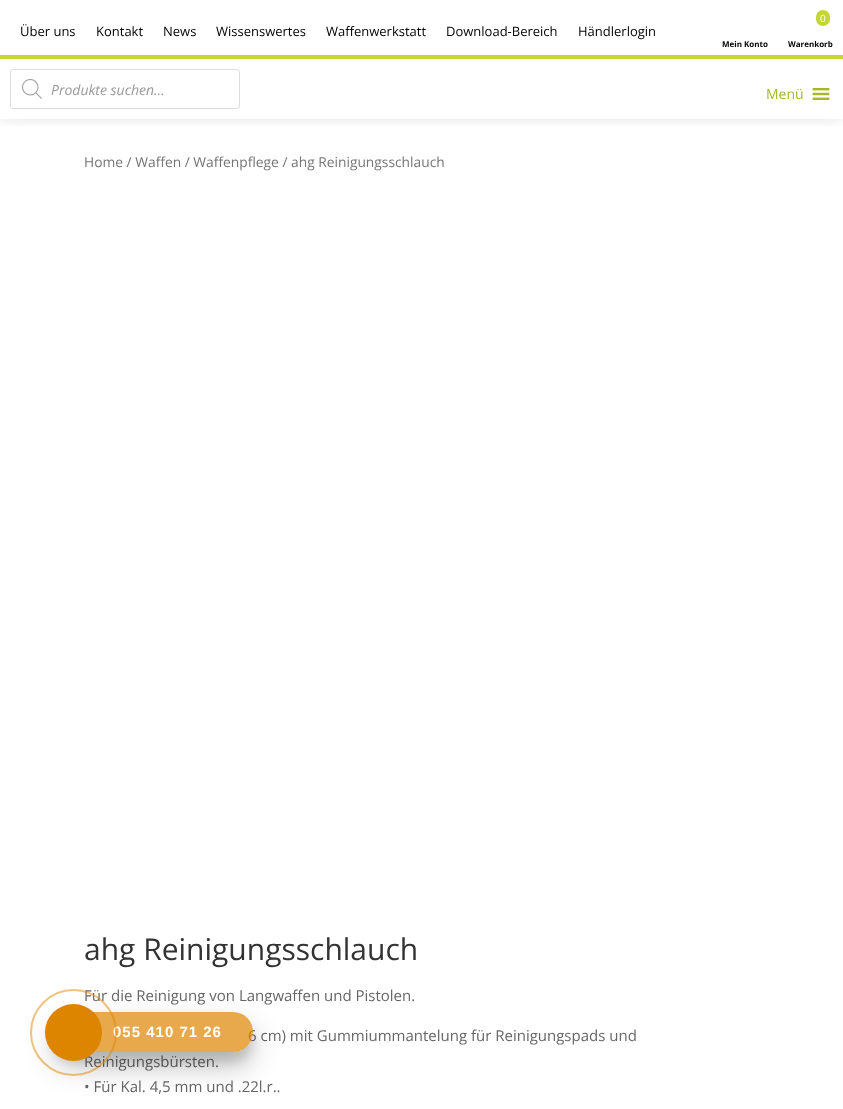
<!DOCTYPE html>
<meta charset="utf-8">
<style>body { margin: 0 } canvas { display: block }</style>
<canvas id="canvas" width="843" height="1109"></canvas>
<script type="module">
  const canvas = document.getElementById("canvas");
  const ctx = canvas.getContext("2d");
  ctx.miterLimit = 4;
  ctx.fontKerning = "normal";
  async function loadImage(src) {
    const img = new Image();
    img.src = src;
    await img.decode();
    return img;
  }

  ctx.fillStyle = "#ffffff";
  ctx.fillRect(0, 0, 843, 1109);
  ctx.save();
  ctx.beginPath();
  ctx.rect(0, 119, 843, 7);
  ctx.clip();
  ctx.fillStyle = "rgba(0, 0, 0, 0.3)";
  ctx.filter = "blur(10px)";
  ctx.beginPath();
  ctx.rect(0, -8, 843, 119);
  ctx.fill();
  ctx.filter = "none";
  ctx.restore();
  ctx.fillStyle = "#c4d72e";
  ctx.fillRect(0, 55, 843, 4);
  ctx.font = "13px Open Sans";
  ctx.fillStyle = "#030303";
  ctx.fillText("Über uns", 20, 36);
  ctx.fillText("Kontakt", 96, 36);
  ctx.fillText("News", 163, 36);
  ctx.fillText("Wissenswertes", 216, 36);
  ctx.fillText("Waffenwerkstatt", 326, 36);
  ctx.fillText("Download-Bereich", 446, 36);
  ctx.fillText("Händlerlogin", 578, 36);
  ctx.font = "bold 8px Open Sans";
  ctx.fillText("Mein Konto", 722, 47);
  ctx.fillStyle = "#c4d72e";
  ctx.beginPath();
  ctx.roundRect(816, 10, 14, 16, 7);
  ctx.fill();
  ctx.font = "10px Open Sans";
  ctx.fillStyle = "#ffffff";
  ctx.fillText("0", 820, 22);
  ctx.font = "bold 8px Open Sans";
  ctx.fillStyle = "#030303";
  ctx.fillText("Warenkorb", 788, 47);
  ctx.beginPath();
  ctx.roundRect(10.5, 69.5, 229, 39, 2.5);
  ctx.strokeStyle = "#dddddd";
  ctx.stroke();
  ctx.drawImage(await loadImage("img1.png"), 22, 79, 20, 20);
  ctx.font = "italic 14px Open Sans";
  ctx.fillStyle = "#999999";
  ctx.fillText("Produkte suchen...", 51, 95);
  ctx.font = "14px Open Sans";
  ctx.fillStyle = "#a7b728";
  ctx.fillText("Menü", 766, 99);
  ctx.drawImage(await loadImage("img2.png"), 812, 88, 18, 12);
  ctx.font = "13.8px Open Sans";
  ctx.fillStyle = "#767676";
  ctx.fillText("Home / Waffen / Waffenpflege / ahg Reinigungsschlauch", 84, 167);
  ctx.font = "30px Open Sans";
  ctx.fillStyle = "#333333";
  ctx.fillText("ahg Reinigungsschlauch", 84, 960);
  ctx.font = "15px Open Sans";
  ctx.fillStyle = "#666666";
  ctx.fillText("Für die Reinigung von Langwaffen und Pistolen.", 84, 1001);
  ctx.fillText("6 cm) mit Gummiummantelung für Reinigungspads und", 248, 1041);
  ctx.fillText("Reinigungsbürsten.", 84, 1067);
  ctx.fillText("• Für Kal. 4,5 mm und .22l.r..", 84, 1092);
  ctx.save();
  ctx.beginPath();
  ctx.moveTo(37, 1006);
  ctx.lineTo(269, 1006);
  ctx.lineTo(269, 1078);
  ctx.lineTo(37, 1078);
  ctx.closePath();
  ctx.moveTo(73, 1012);
  ctx.lineTo(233, 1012);
  ctx.bezierCurveTo(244, 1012, 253, 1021, 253, 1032);
  ctx.bezierCurveTo(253, 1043, 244, 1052, 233, 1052);
  ctx.lineTo(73, 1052);
  ctx.bezierCurveTo(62, 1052, 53, 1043, 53, 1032);
  ctx.bezierCurveTo(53, 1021, 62, 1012, 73, 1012);
  ctx.closePath();
  ctx.clip("evenodd");
  ctx.fillStyle = "rgba(0, 0, 0, 0.1)";
  ctx.filter = "blur(5px)";
  ctx.beginPath();
  ctx.roundRect(53, 1022, 200, 40, 20);
  ctx.fill();
  ctx.filter = "none";
  ctx.restore();
  ctx.save();
  ctx.beginPath();
  ctx.moveTo(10, 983);
  ctx.lineTo(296, 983);
  ctx.lineTo(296, 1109);
  ctx.lineTo(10, 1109);
  ctx.closePath();
  ctx.moveTo(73, 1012);
  ctx.lineTo(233, 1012);
  ctx.bezierCurveTo(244, 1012, 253, 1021, 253, 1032);
  ctx.bezierCurveTo(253, 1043, 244, 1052, 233, 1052);
  ctx.lineTo(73, 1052);
  ctx.bezierCurveTo(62, 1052, 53, 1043, 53, 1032);
  ctx.bezierCurveTo(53, 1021, 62, 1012, 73, 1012);
  ctx.closePath();
  ctx.clip("evenodd");
  ctx.fillStyle = "rgba(0, 0, 0, 0.25)";
  ctx.filter = "blur(14px)";
  ctx.beginPath();
  ctx.roundRect(53, 1026, 200, 40, 20);
  ctx.fill();
  ctx.filter = "none";
  ctx.restore();
  ctx.fillStyle = "rgba(221, 133, 0, 0.7)";
  ctx.beginPath();
  ctx.roundRect(53, 1012, 200, 40, 20);
  ctx.fill();
  ctx.letterSpacing = "1px";
  ctx.font = "bold 15px Liberation Sans";
  ctx.fillStyle = "#ffffff";
  ctx.fillText("055 410 71 26", 113, 1037);
  ctx.beginPath();
  ctx.arc(73.5, 1032.5, 42.5, 0, Math.PI * 2);
  ctx.strokeStyle = "rgba(221, 133, 0, 0.5)";
  ctx.lineWidth = 2;
  ctx.stroke();
  ctx.fillStyle = "#dd8500";
  ctx.beginPath();
  ctx.arc(73.5, 1032.5, 28.5, 0, Math.PI * 2);
  ctx.fill();
</script>
